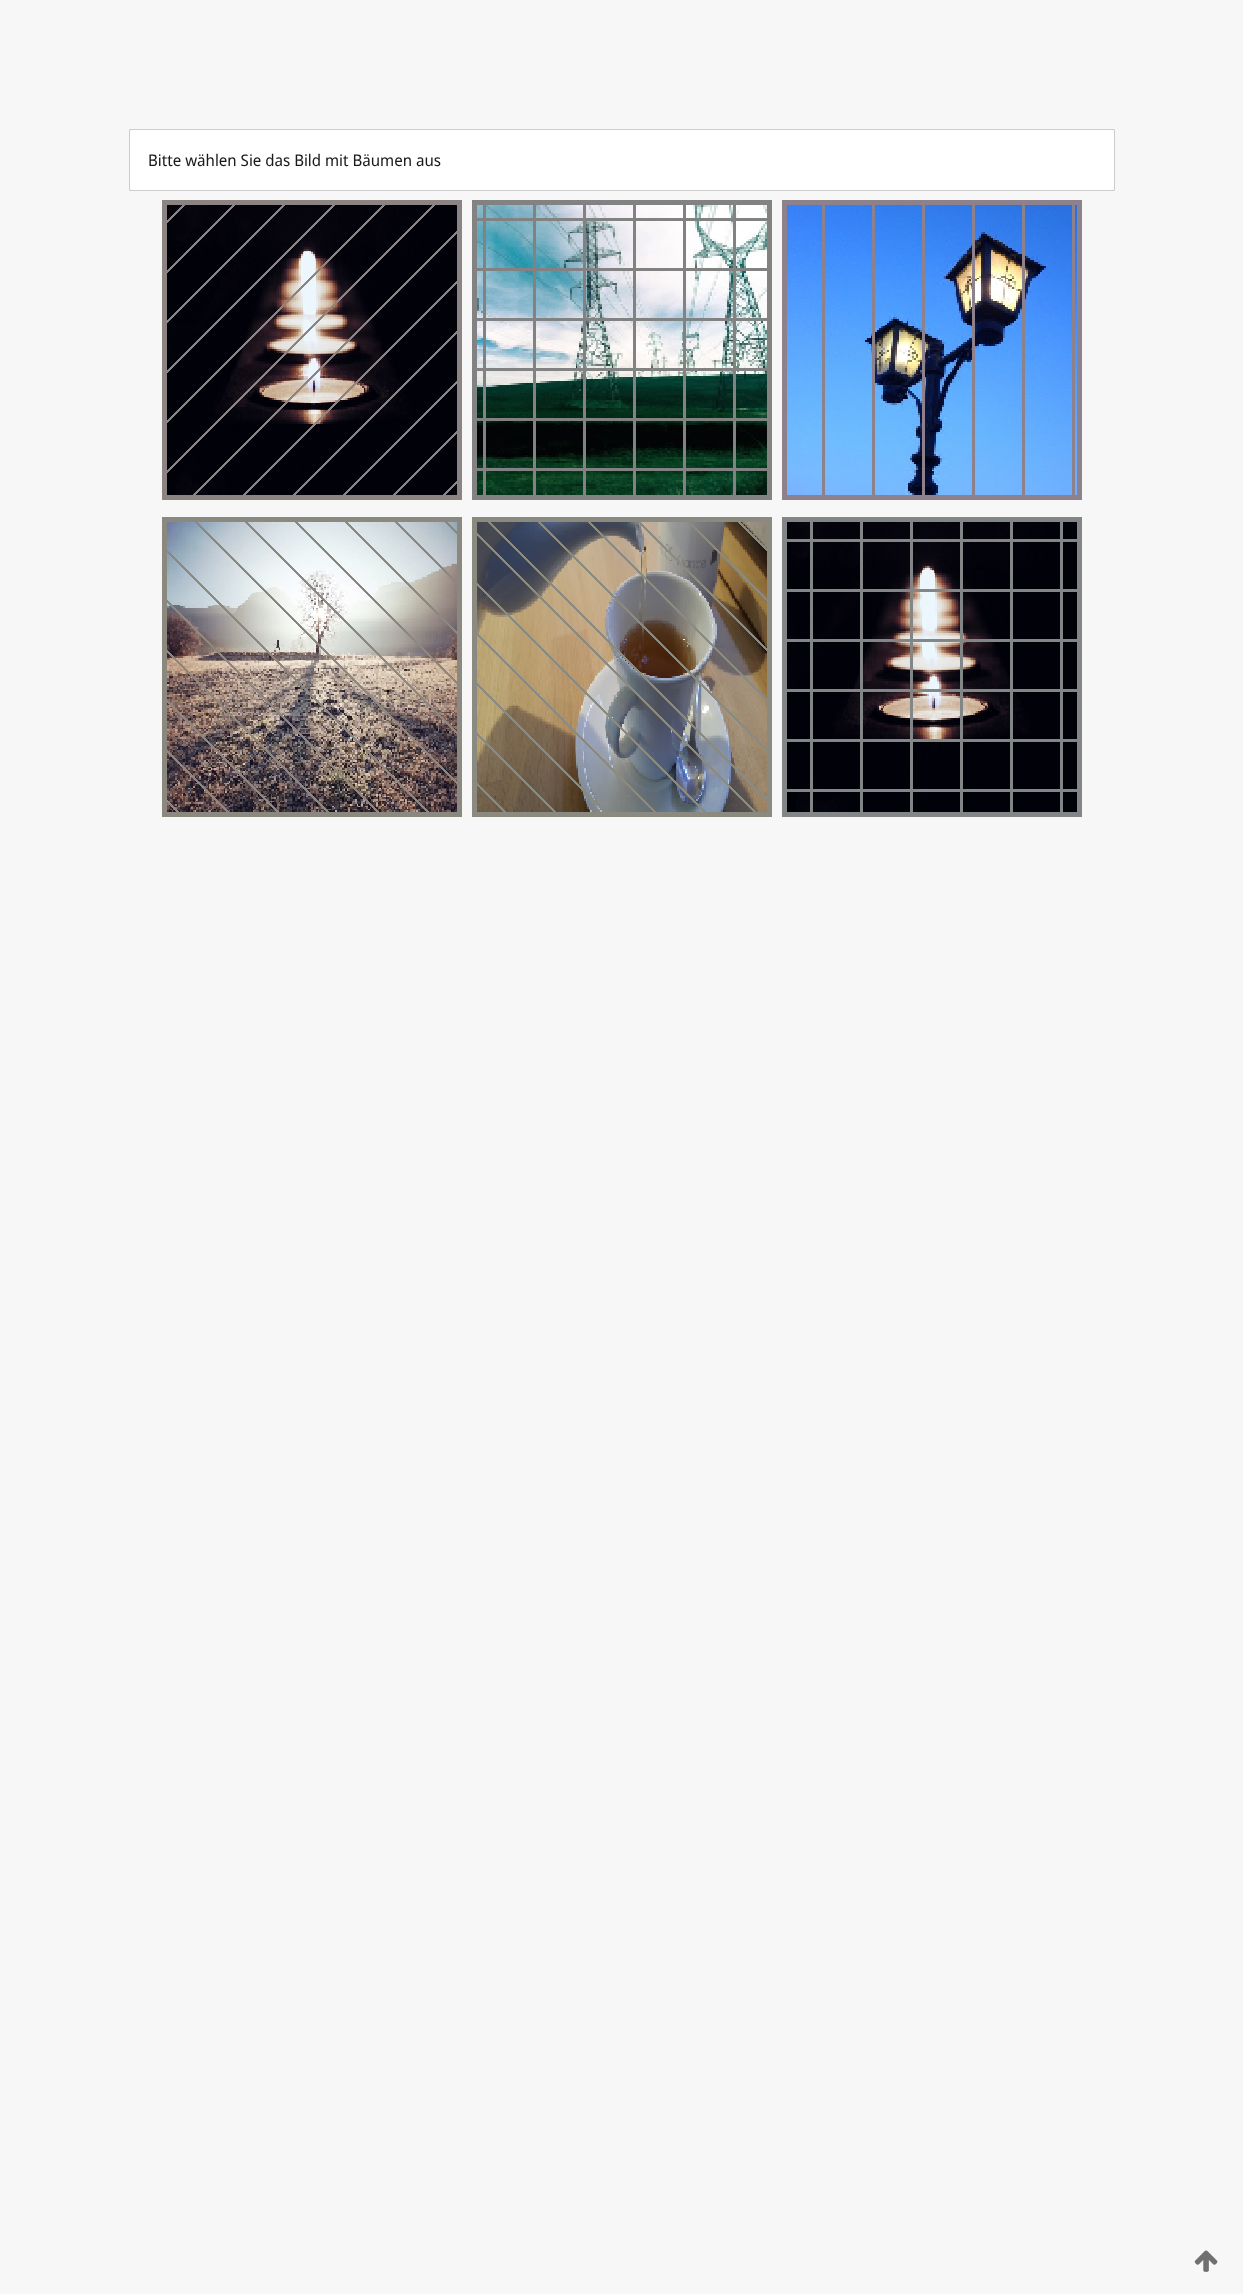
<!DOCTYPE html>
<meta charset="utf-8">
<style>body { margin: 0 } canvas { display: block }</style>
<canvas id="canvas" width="1243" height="2294"></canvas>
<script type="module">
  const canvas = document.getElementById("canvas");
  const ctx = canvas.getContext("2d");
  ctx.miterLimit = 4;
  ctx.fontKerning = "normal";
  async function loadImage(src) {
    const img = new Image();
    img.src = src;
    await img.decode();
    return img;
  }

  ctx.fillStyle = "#f7f7f7";
  ctx.fillRect(0, 0, 1243, 2294);
  ctx.fillStyle = "#ffffff";
  ctx.beginPath();
  ctx.rect(129.5, 129.5, 985, 61);
  ctx.fill();
  ctx.strokeStyle = "#cccccc";
  ctx.stroke();
  ctx.font = "16px Noto Sans Display";
  ctx.fillStyle = "#1a1a1a";
  ctx.fillText("Bitte wählen Sie das Bild mit Bäumen aus", 148, 166);
  ctx.drawImage(await loadImage("img1.png"), 162, 200, 300, 300);
  ctx.drawImage(await loadImage("img2.png"), 472, 200, 300, 300);
  ctx.drawImage(await loadImage("img3.png"), 782, 200, 300, 300);
  ctx.drawImage(await loadImage("img4.png"), 162, 517, 300, 300);
  ctx.drawImage(await loadImage("img5.png"), 472, 517, 300, 300);
  ctx.drawImage(await loadImage("img6.png"), 782, 517, 300, 300);
  ctx.drawImage(await loadImage("img7.png"), 1194, 2250, 24, 22);
</script>
